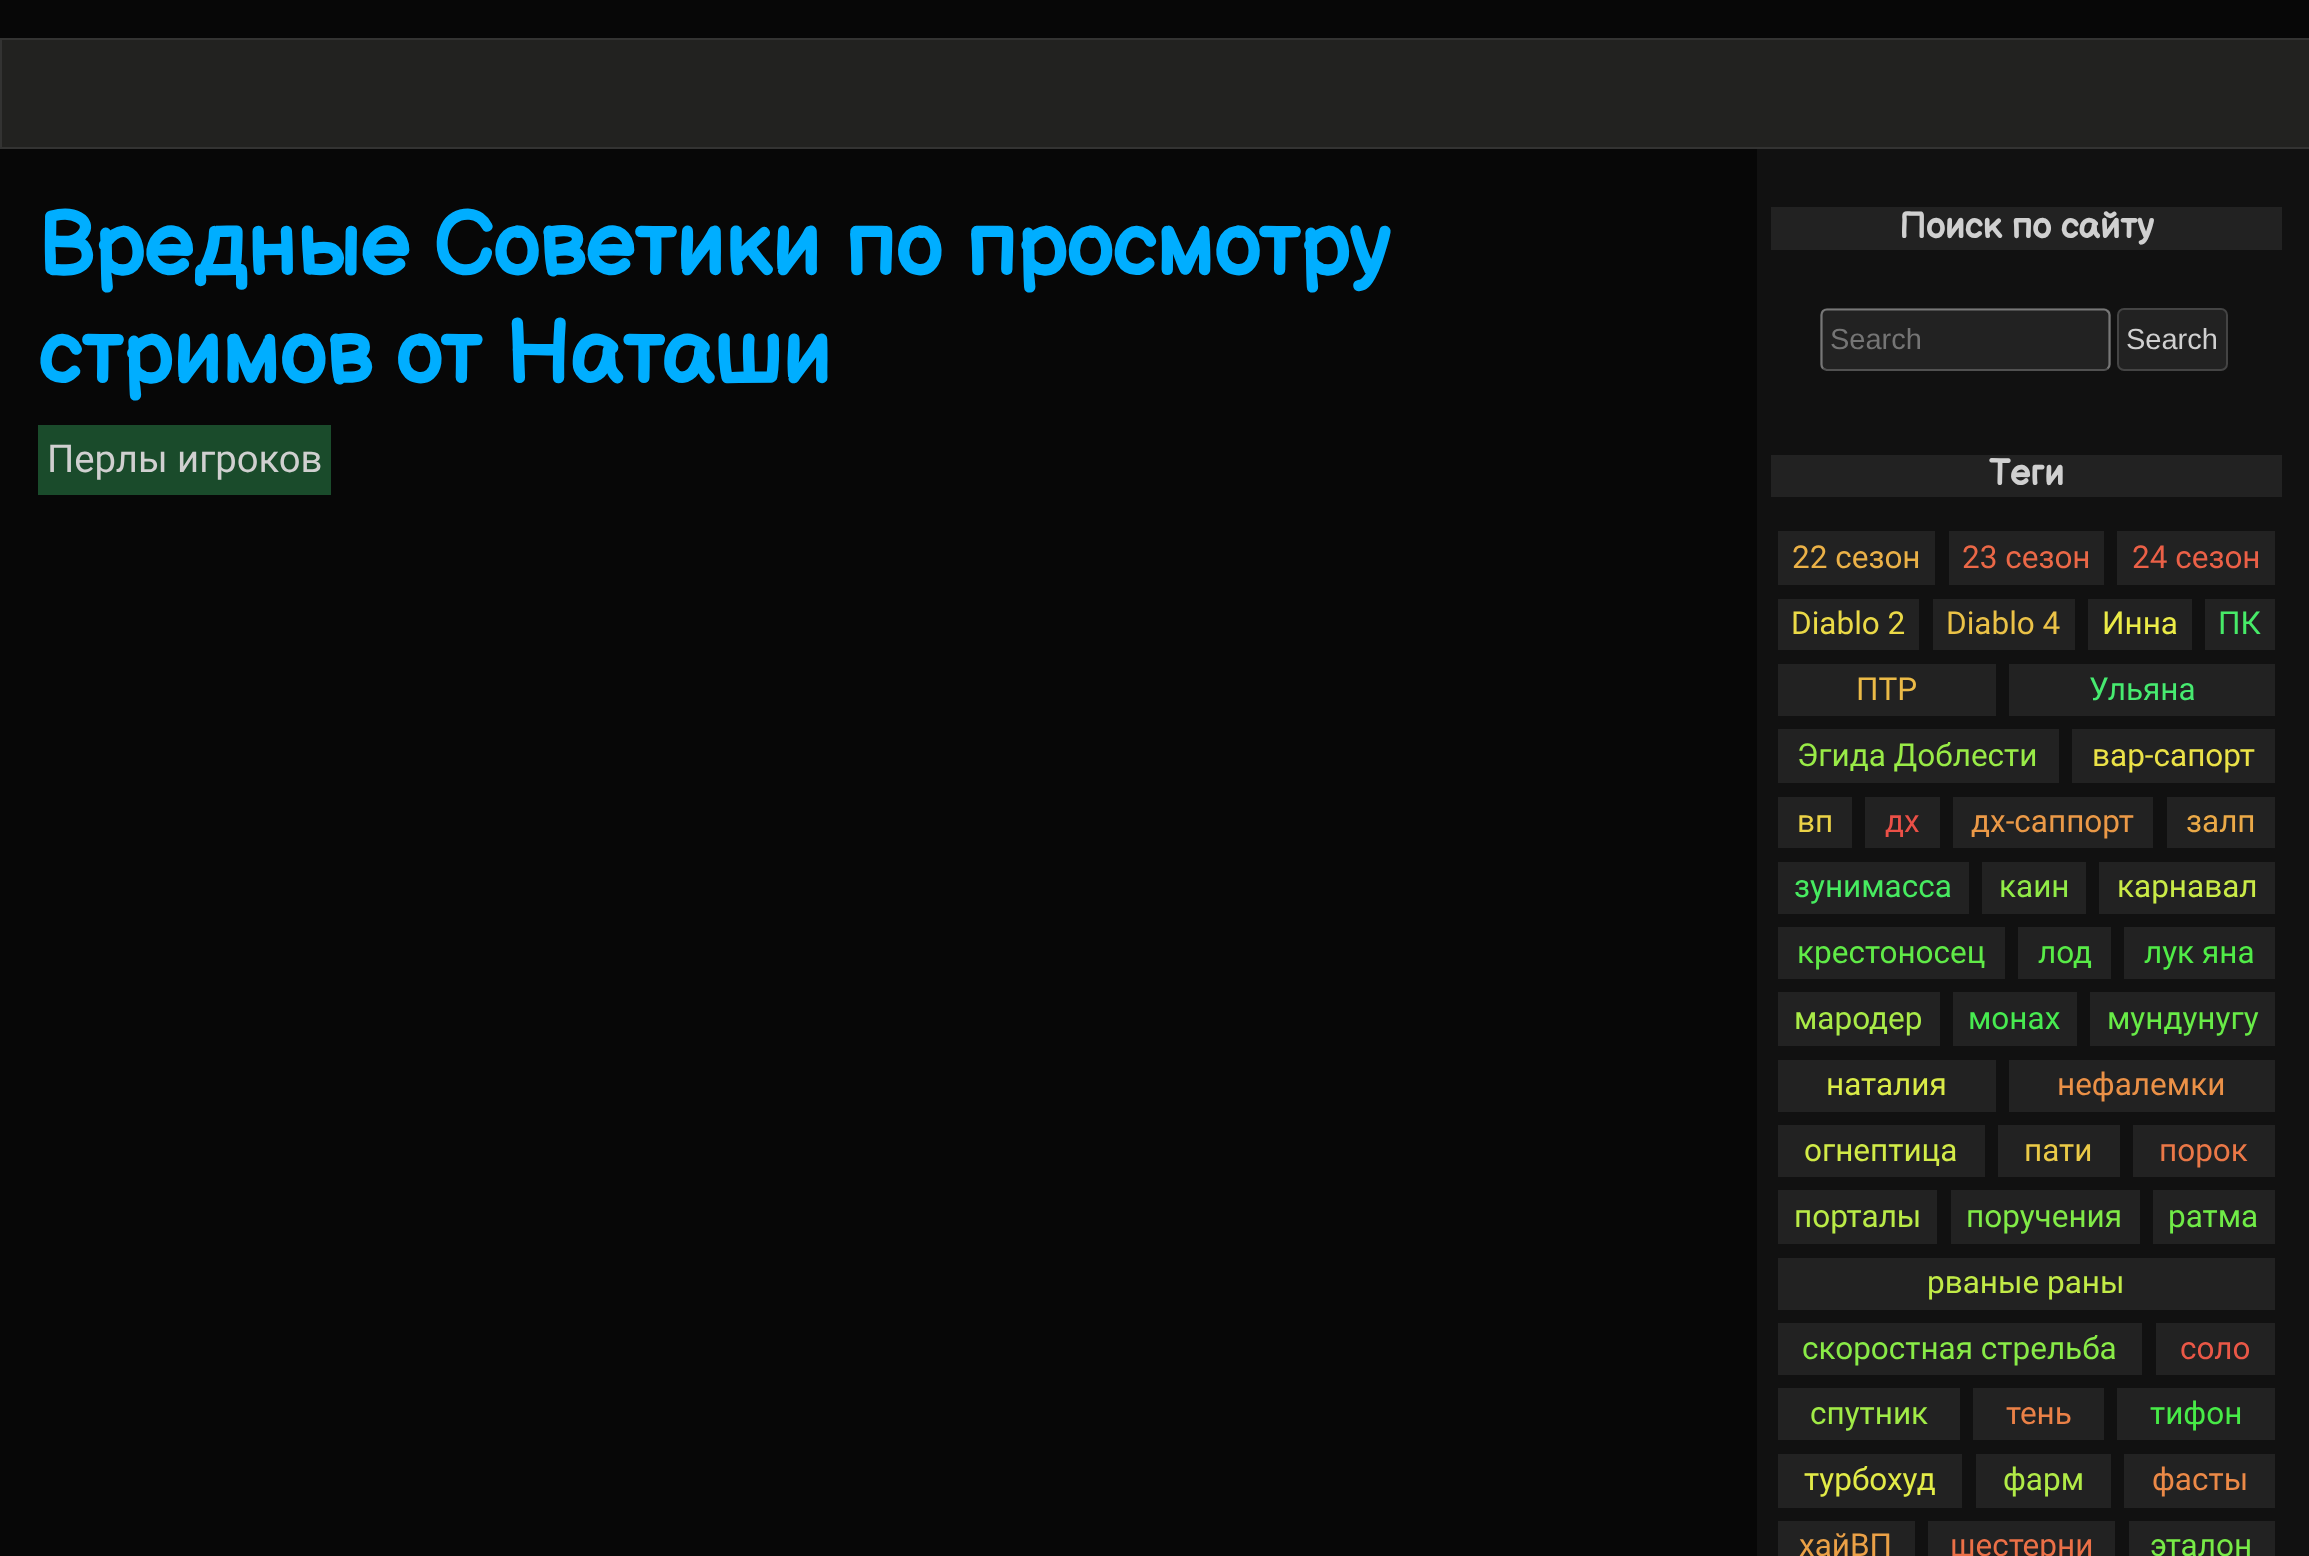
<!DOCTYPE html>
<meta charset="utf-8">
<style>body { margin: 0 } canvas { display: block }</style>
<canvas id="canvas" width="2309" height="1556"></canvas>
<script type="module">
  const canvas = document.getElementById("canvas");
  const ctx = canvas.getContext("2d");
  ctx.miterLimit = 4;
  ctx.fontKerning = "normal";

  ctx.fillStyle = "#070707";
  ctx.fillRect(0, 0, 2309, 1556);
  ctx.fillStyle = "#222220";
  ctx.beginPath();
  ctx.rect(1, 39, 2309, 109);
  ctx.fill();
  ctx.strokeStyle = "#333332";
  ctx.lineWidth = 2;
  ctx.stroke();
  ctx.font = "bold 88.25px Balsamiq Sans";
  ctx.fillStyle = "#00aeff";
  ctx.fillText("Вредные Советики по просмотру", 38, 275);
  ctx.fillText("стримов от Наташи", 38, 383);
  ctx.fillStyle = "#1a4b2b";
  ctx.fillRect(38, 425, 293, 70);
  ctx.font = "38.25px Roboto";
  ctx.fillStyle = "#d0d0d0";
  ctx.fillText("Перлы игроков", 47, 472);
  ctx.fillStyle = "#111111";
  ctx.fillRect(1757, 149, 552, 1407);
  ctx.fillStyle = "#222222";
  ctx.fillRect(1771, 207, 511, 43);
  ctx.font = "bold 36px Balsamiq Sans";
  ctx.fillStyle = "#d0d0d0";
  ctx.fillText("Поиск по сайту", 1899, 238);
  ctx.fillStyle = "#222222";
  ctx.beginPath();
  ctx.roundRect(1820, 308, 291, 63, 7);
  ctx.fill();
  ctx.beginPath();
  ctx.moveTo(2107.5, 368.5);
  ctx.bezierCurveTo(2106.5, 369.5, 2105, 370, 2104, 370);
  ctx.lineTo(1826.5, 370);
  ctx.lineTo(1823, 368.5);
  ctx.strokeStyle = "rgba(127, 127, 127, 0.5)";
  ctx.lineWidth = 2.2;
  ctx.stroke();
  ctx.beginPath();
  ctx.moveTo(1823, 368.5);
  ctx.bezierCurveTo(1822, 367.5, 1821.5, 366, 1821.5, 364.5);
  ctx.lineTo(1821.5, 315);
  ctx.bezierCurveTo(1821.5, 313.5, 1822, 312, 1823, 311);
  ctx.bezierCurveTo(1824, 310, 1825.5, 309.5, 1827, 309.5);
  ctx.lineTo(2104, 309.5);
  ctx.bezierCurveTo(2105, 309.5, 2106.5, 310, 2107.5, 311);
  ctx.bezierCurveTo(2109, 312, 2109.5, 313.5, 2109.5, 315);
  ctx.lineTo(2109.5, 364.5);
  ctx.bezierCurveTo(2109.5, 366, 2109, 367.5, 2107.5, 368.5);
  ctx.strokeStyle = "rgba(203, 203, 203, 0.5)";
  ctx.stroke();
  ctx.font = "29px Liberation Sans";
  ctx.fillStyle = "#757575";
  ctx.fillText("Search", 1830, 349);
  ctx.fillStyle = "#222222";
  ctx.beginPath();
  ctx.roundRect(2118, 309, 109, 61, 6);
  ctx.fill();
  ctx.strokeStyle = "#444444";
  ctx.lineWidth = 2;
  ctx.stroke();
  ctx.fillStyle = "#d0d0d0";
  ctx.fillText("Search", 2126, 349);
  ctx.fillStyle = "#222222";
  ctx.fillRect(1771, 455, 511, 42);
  ctx.font = "bold 36px Balsamiq Sans";
  ctx.fillStyle = "#d0d0d0";
  ctx.fillText("Теги", 1989, 485);
  ctx.fillStyle = "#222222";
  ctx.fillRect(1778, 531, 157, 54);
  ctx.font = "31.5px Roboto";
  ctx.fillStyle = "#ebb147";
  ctx.fillText("22 сезон", 1792, 568);
  ctx.fillStyle = "#222222";
  ctx.fillRect(1949, 531, 155, 54);
  ctx.fillStyle = "#eb6847";
  ctx.fillText("23 сезон", 1962, 568);
  ctx.fillStyle = "#222222";
  ctx.fillRect(2117, 531, 158, 54);
  ctx.fillStyle = "#eb6047";
  ctx.fillText("24 сезон", 2132, 568);
  ctx.fillStyle = "#222222";
  ctx.fillRect(1778, 599, 141, 51);
  ctx.fillStyle = "#ebda47";
  ctx.fillText("Diablo 2", 1791, 634);
  ctx.fillStyle = "#222222";
  ctx.fillRect(1933, 599, 142, 51);
  ctx.fillStyle = "#ebc247";
  ctx.fillText("Diablo 4", 1946, 634);
  ctx.fillStyle = "#222222";
  ctx.fillRect(2088, 599, 104, 51);
  ctx.fillStyle = "#ebeb47";
  ctx.fillText("Инна", 2102, 634);
  ctx.fillStyle = "#222222";
  ctx.fillRect(2205, 599, 70, 51);
  ctx.fillStyle = "#47eb68";
  ctx.fillText("ПК", 2218, 634);
  ctx.fillStyle = "#222222";
  ctx.fillRect(1778, 664, 218, 52);
  ctx.fillStyle = "#ebba47";
  ctx.fillText("ПТР", 1856, 700);
  ctx.fillStyle = "#222222";
  ctx.fillRect(2009, 664, 266, 52);
  ctx.fillStyle = "#47eb70";
  ctx.fillText("Ульяна", 2089, 700);
  ctx.fillStyle = "#222222";
  ctx.fillRect(1778, 729, 281, 54);
  ctx.fillStyle = "#99eb47";
  ctx.fillText("Эгида Доблести", 1797, 766);
  ctx.fillStyle = "#222222";
  ctx.fillRect(2072, 729, 203, 54);
  ctx.fillStyle = "#ebe247";
  ctx.fillText("вар-сапорт", 2092, 766);
  ctx.fillStyle = "#222222";
  ctx.fillRect(1778, 797, 74, 51);
  ctx.fillStyle = "#ebd247";
  ctx.fillText("вп", 1797, 832);
  ctx.fillStyle = "#222222";
  ctx.fillRect(1865, 797, 75, 51);
  ctx.fillStyle = "#eb5047";
  ctx.fillText("дх", 1885, 832);
  ctx.fillStyle = "#222222";
  ctx.fillRect(1953, 797, 200, 51);
  ctx.fillStyle = "#eb9947";
  ctx.fillText("дх-саппорт", 1971, 832);
  ctx.fillStyle = "#222222";
  ctx.fillRect(2167, 797, 108, 51);
  ctx.fillStyle = "#eba947";
  ctx.fillText("залп", 2186, 832);
  ctx.fillStyle = "#222222";
  ctx.fillRect(1778, 862, 191, 52);
  ctx.fillStyle = "#47eb60";
  ctx.fillText("зунимасса", 1794, 897);
  ctx.fillStyle = "#222222";
  ctx.fillRect(1982, 862, 104, 52);
  ctx.fillStyle = "#91eb47";
  ctx.fillText("каин", 1999, 897);
  ctx.fillStyle = "#222222";
  ctx.fillRect(2099, 862, 176, 52);
  ctx.fillStyle = "#caeb47";
  ctx.fillText("карнавал", 2117, 897);
  ctx.fillStyle = "#222222";
  ctx.fillRect(1778, 927, 227, 52);
  ctx.fillStyle = "#60eb47";
  ctx.fillText("крестоносец", 1797, 963);
  ctx.fillStyle = "#222222";
  ctx.fillRect(2018, 927, 93, 52);
  ctx.fillStyle = "#58eb47";
  ctx.fillText("лод", 2038, 963);
  ctx.fillStyle = "#222222";
  ctx.fillRect(2124, 927, 151, 52);
  ctx.fillStyle = "#50eb47";
  ctx.fillText("лук яна", 2144, 963);
  ctx.fillStyle = "#222222";
  ctx.fillRect(1778, 992, 162, 54);
  ctx.fillStyle = "#a9eb47";
  ctx.fillText("мародер", 1794, 1029);
  ctx.fillStyle = "#222222";
  ctx.fillRect(1953, 992, 124, 54);
  ctx.fillStyle = "#47eb50";
  ctx.fillText("монах", 1968, 1029);
  ctx.fillStyle = "#222222";
  ctx.fillRect(2090, 992, 185, 54);
  ctx.fillStyle = "#68eb47";
  ctx.fillText("мундунугу", 2107, 1029);
  ctx.fillStyle = "#222222";
  ctx.fillRect(1778, 1060, 218, 52);
  ctx.fillStyle = "#daeb47";
  ctx.fillText("наталия", 1826, 1095);
  ctx.fillStyle = "#222222";
  ctx.fillRect(2009, 1060, 266, 52);
  ctx.fillStyle = "#eb9147";
  ctx.fillText("нефалемки", 2057, 1095);
  ctx.fillStyle = "#222222";
  ctx.fillRect(1778, 1125, 207, 52);
  ctx.fillStyle = "#d2eb47";
  ctx.fillText("огнептица", 1804, 1161);
  ctx.fillStyle = "#222222";
  ctx.fillRect(1998, 1125, 122, 52);
  ctx.fillStyle = "#ebca47";
  ctx.fillText("пати", 2024, 1161);
  ctx.fillStyle = "#222222";
  ctx.fillRect(2133, 1125, 142, 52);
  ctx.fillStyle = "#eb7847";
  ctx.fillText("порок", 2159, 1161);
  ctx.fillStyle = "#222222";
  ctx.fillRect(1778, 1190, 159, 54);
  ctx.fillStyle = "#baeb47";
  ctx.fillText("порталы", 1794, 1227);
  ctx.fillStyle = "#222222";
  ctx.fillRect(1951, 1190, 189, 54);
  ctx.fillStyle = "#81eb47";
  ctx.fillText("поручения", 1966, 1227);
  ctx.fillStyle = "#222222";
  ctx.fillRect(2153, 1190, 122, 54);
  ctx.fillStyle = "#70eb47";
  ctx.fillText("ратма", 2168, 1227);
  ctx.fillStyle = "#222222";
  ctx.fillRect(1778, 1258, 497, 52);
  ctx.fillStyle = "#c2eb47";
  ctx.fillText("рваные раны", 1927, 1293);
  ctx.fillStyle = "#222222";
  ctx.fillRect(1778, 1323, 364, 52);
  ctx.fillStyle = "#89eb47";
  ctx.fillText("скоростная стрельба", 1802, 1359);
  ctx.fillStyle = "#222222";
  ctx.fillRect(2156, 1323, 119, 52);
  ctx.fillStyle = "#eb5847";
  ctx.fillText("соло", 2180, 1359);
  ctx.fillStyle = "#222222";
  ctx.fillRect(1778, 1388, 182, 52);
  ctx.fillStyle = "#a1eb47";
  ctx.fillText("спутник", 1810, 1424);
  ctx.fillStyle = "#222222";
  ctx.fillRect(1973, 1388, 131, 52);
  ctx.fillStyle = "#eb8147";
  ctx.fillText("тень", 2006, 1424);
  ctx.fillStyle = "#222222";
  ctx.fillRect(2117, 1388, 158, 52);
  ctx.fillStyle = "#47eb47";
  ctx.fillText("тифон", 2150, 1424);
  ctx.fillStyle = "#222222";
  ctx.fillRect(1778, 1454, 184, 54);
  ctx.fillStyle = "#e2eb47";
  ctx.fillText("турбохуд", 1804, 1490);
  ctx.fillStyle = "#222222";
  ctx.fillRect(1976, 1454, 135, 54);
  ctx.fillStyle = "#b1eb47";
  ctx.fillText("фарм", 2003, 1490);
  ctx.fillStyle = "#222222";
  ctx.fillRect(2124, 1454, 151, 54);
  ctx.fillStyle = "#eb8947";
  ctx.fillText("фасты", 2152, 1490);
  ctx.fillStyle = "#222222";
  ctx.fillRect(1778, 1521, 137, 35);
  ctx.fillStyle = "#eba147";
  ctx.fillText("хайВП", 1799, 1556);
  ctx.fillStyle = "#222222";
  ctx.fillRect(1928, 1521, 187, 35);
  ctx.fillStyle = "#eb7047";
  ctx.fillText("шестерни", 1950, 1556);
  ctx.fillStyle = "#222222";
  ctx.fillRect(2129, 1521, 146, 35);
  ctx.fillStyle = "#78eb47";
  ctx.fillText("эталон", 2150, 1556);
</script>
